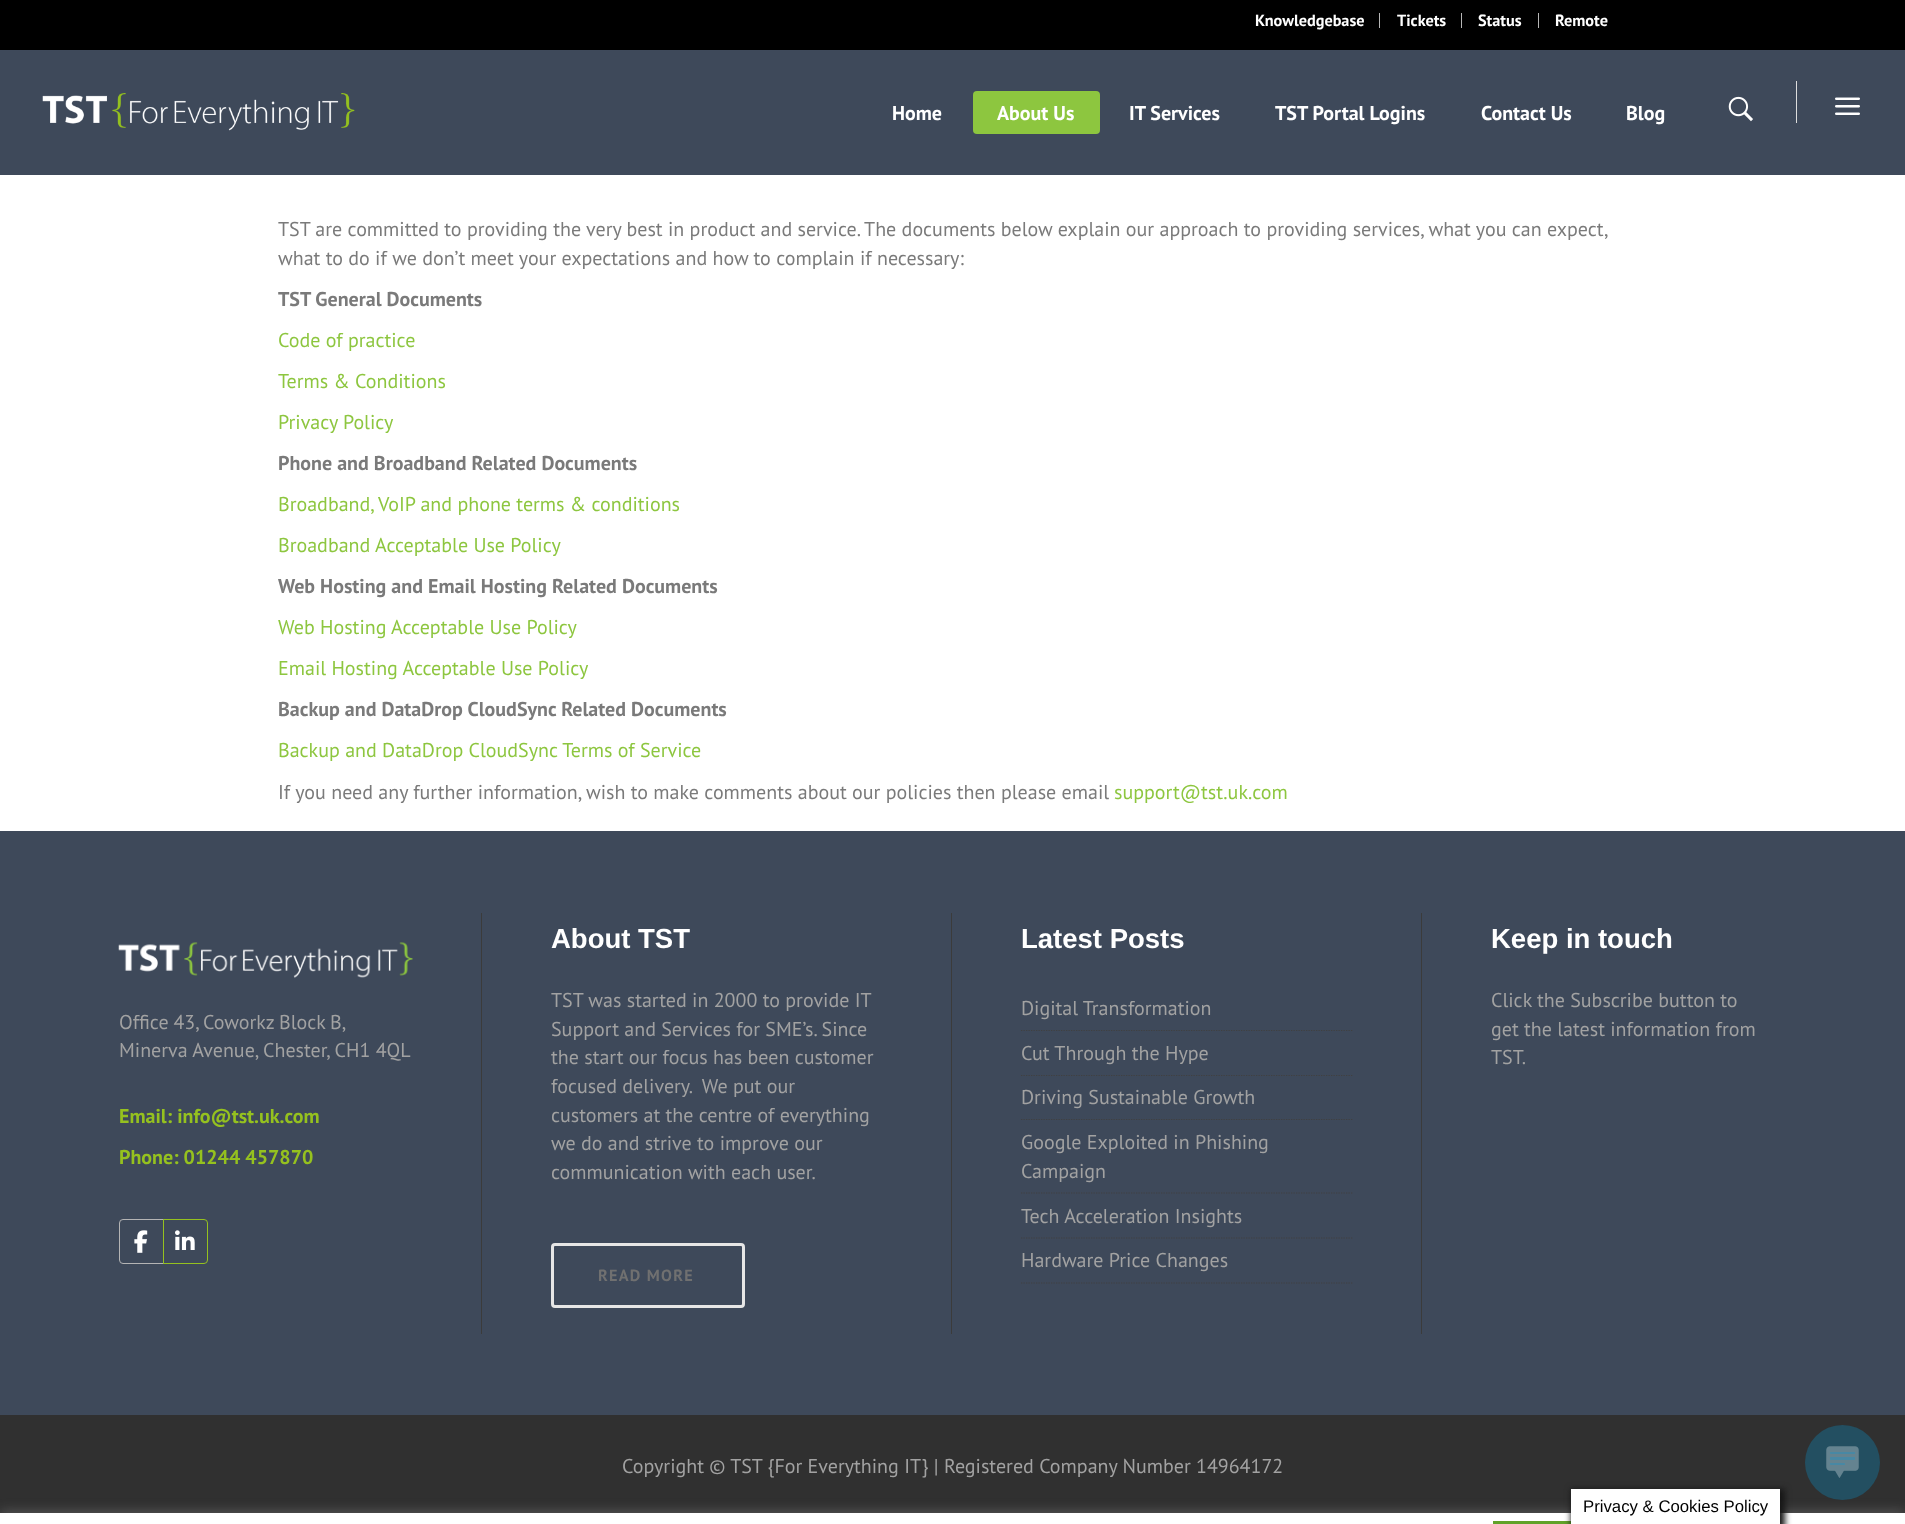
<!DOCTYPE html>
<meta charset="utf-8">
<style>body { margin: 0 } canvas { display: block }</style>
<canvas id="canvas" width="1905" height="1524"></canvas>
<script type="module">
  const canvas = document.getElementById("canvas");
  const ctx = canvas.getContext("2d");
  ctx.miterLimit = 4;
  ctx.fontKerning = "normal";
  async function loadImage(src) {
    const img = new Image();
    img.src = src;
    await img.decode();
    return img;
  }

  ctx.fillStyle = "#ffffff";
  ctx.fillRect(0, 0, 1905, 1524);
  ctx.fillStyle = "#000000";
  ctx.fillRect(0, 0, 1905, 50);
  ctx.font = "bold 16.25px PT Sans";
  ctx.fillStyle = "#ffffff";
  ctx.fillText("Knowledgebase", 1255, 26);
  ctx.fillStyle = "#b6b6b6";
  ctx.fillRect(1379, 13, 1, 15);
  ctx.fillStyle = "#ffffff";
  ctx.fillText("Tickets", 1397, 26);
  ctx.fillStyle = "#b6b6b6";
  ctx.fillRect(1461, 13, 1, 15);
  ctx.fillStyle = "#ffffff";
  ctx.fillText("Status", 1478, 26);
  ctx.fillStyle = "#b6b6b6";
  ctx.fillRect(1538, 13, 1, 15);
  ctx.fillStyle = "#ffffff";
  ctx.fillText("Remote", 1555, 26);
  ctx.fillStyle = "#3e495a";
  ctx.fillRect(0, 50, 1905, 125);
  ctx.drawImage(await loadImage("img1.png"), 42, 93, 313, 38);
  ctx.font = "bold 20px PT Sans";
  ctx.fillStyle = "#ffffff";
  ctx.fillText("Home", 892, 120);
  ctx.fillStyle = "#8dc63f";
  ctx.beginPath();
  ctx.roundRect(973, 91, 127, 43, 4);
  ctx.fill();
  ctx.fillStyle = "#ffffff";
  ctx.fillText("About Us", 997, 120);
  ctx.fillText("IT Services", 1129, 120);
  ctx.fillText("TST Portal Logins", 1275, 120);
  ctx.fillText("Contact Us", 1481, 120);
  ctx.fillText("Blog", 1626, 120);
  ctx.drawImage(await loadImage("img2.png"), 1728, 96, 25, 26);
  ctx.fillStyle = "#dddddd";
  ctx.fillRect(1796, 81, 1, 42);
  ctx.drawImage(await loadImage("img3.png"), 1835, 97, 25, 18);
  ctx.font = "20px PT Sans";
  ctx.fillStyle = "#7a7a7a";
  ctx.fillText("TST are committed to providing the very best in product and service. The documents below explain our approach to providing services, what you can expect,", 278, 236);
  ctx.fillText("what to do if we don’t meet your expectations and how to complain if necessary:", 278, 265);
  ctx.font = "bold 20px PT Sans";
  ctx.fillText("TST General Documents", 278, 306);
  ctx.font = "20px PT Sans";
  ctx.fillStyle = "#8dc63f";
  ctx.fillText("Code of practice", 278, 347);
  ctx.fillText("Terms & Conditions", 278, 388);
  ctx.fillText("Privacy Policy", 278, 429);
  ctx.font = "bold 20px PT Sans";
  ctx.fillStyle = "#7a7a7a";
  ctx.fillText("Phone and Broadband Related Documents", 278, 470);
  ctx.font = "20px PT Sans";
  ctx.fillStyle = "#8dc63f";
  ctx.fillText("Broadband, VoIP and phone terms & conditions", 278, 511);
  ctx.fillText("Broadband Acceptable Use Policy", 278, 552);
  ctx.font = "bold 20px PT Sans";
  ctx.fillStyle = "#7a7a7a";
  ctx.fillText("Web Hosting and Email Hosting Related Documents", 278, 593);
  ctx.font = "20px PT Sans";
  ctx.fillStyle = "#8dc63f";
  ctx.fillText("Web Hosting Acceptable Use Policy", 278, 634);
  ctx.fillText("Email Hosting Acceptable Use Policy", 278, 675);
  ctx.font = "bold 20px PT Sans";
  ctx.fillStyle = "#7a7a7a";
  ctx.fillText("Backup and DataDrop CloudSync Related Documents", 278, 716);
  ctx.font = "20px PT Sans";
  ctx.fillStyle = "#8dc63f";
  ctx.fillText("Backup and DataDrop CloudSync Terms of Service", 278, 757);
  ctx.fillStyle = "#7a7a7a";
  ctx.fillText("If you need any further information, wish to make comments about our policies then please email", 278, 799);
  ctx.fillStyle = "#8dc63f";
  ctx.fillText("support@tst.uk.com", 1114, 799);
  ctx.fillStyle = "#3e495a";
  ctx.fillRect(0, 831, 1905, 584);
  ctx.fillStyle = "#3b3b3b";
  ctx.fillRect(481, 913, 1, 421);
  ctx.drawImage(await loadImage("img4.png"), 118, 942, 295, 36);
  ctx.wordSpacing = "-0.5px";
  ctx.fillStyle = "#a2a2a2";
  ctx.fillText("Office 43, Coworkz Block B,", 119, 1029);
  ctx.wordSpacing = "0px";
  ctx.fillText("Minerva Avenue, Chester, CH1 4QL", 119, 1057);
  ctx.font = "bold 20px PT Sans";
  ctx.fillStyle = "#95c11f";
  ctx.fillText("Email: info@tst.uk.com", 119, 1123);
  ctx.fillText("Phone: 01244 457870", 119, 1164);
  ctx.beginPath();
  ctx.roundRect(119.5, 1219.5, 44, 44, [3.5, 0, 0, 3.5]);
  ctx.strokeStyle = "#b4b4b4";
  ctx.stroke();
  ctx.drawImage(await loadImage("img5.png"), 134, 1230, 14, 23);
  ctx.beginPath();
  ctx.roundRect(163.5, 1219.5, 44, 44, [0, 3.5, 3.5, 0]);
  ctx.strokeStyle = "#95c11f";
  ctx.stroke();
  ctx.drawImage(await loadImage("img6.png"), 175, 1230, 20, 20);
  ctx.fillStyle = "#3b3b3b";
  ctx.fillRect(951, 913, 1, 421);
  ctx.font = "bold 27.5px Liberation Sans";
  ctx.fillStyle = "#ffffff";
  ctx.fillText("About TST", 551, 948);
  ctx.font = "20px PT Sans";
  ctx.fillStyle = "#a2a2a2";
  ctx.fillText("TST was started in 2000 to provide IT", 551, 1007);
  ctx.fillText("Support and Services for SME’s. Since", 551, 1036);
  ctx.fillText("the start our focus has been customer", 551, 1064);
  ctx.fillText("focused delivery.  We put our", 551, 1093);
  ctx.fillText("customers at the centre of everything", 551, 1122);
  ctx.fillText("we do and strive to improve our", 551, 1150);
  ctx.fillText("communication with each user.", 551, 1179);
  ctx.beginPath();
  ctx.roundRect(552.5, 1244.5, 191, 62, 2.5);
  ctx.strokeStyle = "#e6e6e6";
  ctx.lineWidth = 3;
  ctx.stroke();
  ctx.letterSpacing = "1.25px";
  ctx.font = "bold 16.25px PT Sans";
  ctx.fillStyle = "#707070";
  ctx.fillText("READ MORE", 598, 1281);
  ctx.fillStyle = "#3b3b3b";
  ctx.fillRect(1421, 913, 1, 421);
  ctx.letterSpacing = "0px";
  ctx.font = "bold 27.5px Liberation Sans";
  ctx.fillStyle = "#ffffff";
  ctx.fillText("Latest Posts", 1021, 948);
  ctx.beginPath();
  ctx.moveTo(1021, 1030.5);
  ctx.lineTo(1352.5, 1030.5);
  ctx.strokeStyle = "#404040";
  ctx.lineWidth = 1.2;
  ctx.setLineDash([1.25, 1.25]);
  ctx.stroke();
  ctx.font = "20px PT Sans";
  ctx.fillStyle = "#a2a2a2";
  ctx.fillText("Digital Transformation", 1021, 1015);
  ctx.beginPath();
  ctx.moveTo(1021, 1075.5);
  ctx.lineTo(1352.5, 1075.5);
  ctx.stroke();
  ctx.fillText("Cut Through the Hype", 1021, 1060);
  ctx.beginPath();
  ctx.moveTo(1021, 1119.5);
  ctx.lineTo(1352.5, 1119.5);
  ctx.stroke();
  ctx.fillText("Driving Sustainable Growth", 1021, 1104);
  ctx.beginPath();
  ctx.moveTo(1021, 1193);
  ctx.lineTo(1352.5, 1193);
  ctx.stroke();
  ctx.fillText("Google Exploited in Phishing", 1021, 1149);
  ctx.fillText("Campaign", 1021, 1178);
  ctx.beginPath();
  ctx.moveTo(1021, 1238);
  ctx.lineTo(1352.5, 1238);
  ctx.stroke();
  ctx.fillText("Tech Acceleration Insights", 1021, 1223);
  ctx.beginPath();
  ctx.moveTo(1021, 1283);
  ctx.lineTo(1352.5, 1283);
  ctx.stroke();
  ctx.fillText("Hardware Price Changes", 1021, 1267);
  ctx.font = "bold 27.5px Liberation Sans";
  ctx.fillStyle = "#ffffff";
  ctx.fillText("Keep in touch", 1491, 948);
  ctx.font = "20px PT Sans";
  ctx.fillStyle = "#a2a2a2";
  ctx.fillText("Click the Subscribe button to", 1491, 1007);
  ctx.fillText("get the latest information from", 1491, 1036);
  ctx.fillText("TST.", 1491, 1064);
  ctx.fillStyle = "#303030";
  ctx.fillRect(0, 1415, 1905, 98);
  ctx.fillStyle = "#a2a2a2";
  ctx.fillText("Copyright © TST {For Everything IT} | Registered Company Number 14964172", 622, 1473);
  ctx.fillStyle = "rgba(172, 171, 171, 0.3)";
  ctx.filter = "blur(6px)";
  ctx.beginPath();
  ctx.rect(0, 1511, 1905, 13);
  ctx.fill();
  ctx.filter = "none";
  ctx.fillStyle = "#234f61";
  ctx.beginPath();
  ctx.arc(1842.5, 1462.5, 37.5, 0, Math.PI * 2);
  ctx.fill();
  ctx.drawImage(await loadImage("img7.png"), 1826, 1446, 33, 32);
  ctx.fillStyle = "#ffffff";
  ctx.fillRect(0, 1513, 1905, 11);
  ctx.fillStyle = "#61a229";
  ctx.fillRect(1493, 1521, 78, 3);
  ctx.fillStyle = "#161616";
  ctx.filter = "blur(3px)";
  ctx.beginPath();
  ctx.rect(1571, 1489, 214, 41);
  ctx.fill();
  ctx.filter = "none";
  ctx.fillStyle = "#ffffff";
  ctx.fillRect(1571, 1489, 209, 35);
  ctx.font = "16.75px Liberation Sans";
  ctx.fillStyle = "#000000";
  ctx.fillText("Privacy & Cookies Policy", 1583, 1512);
</script>
